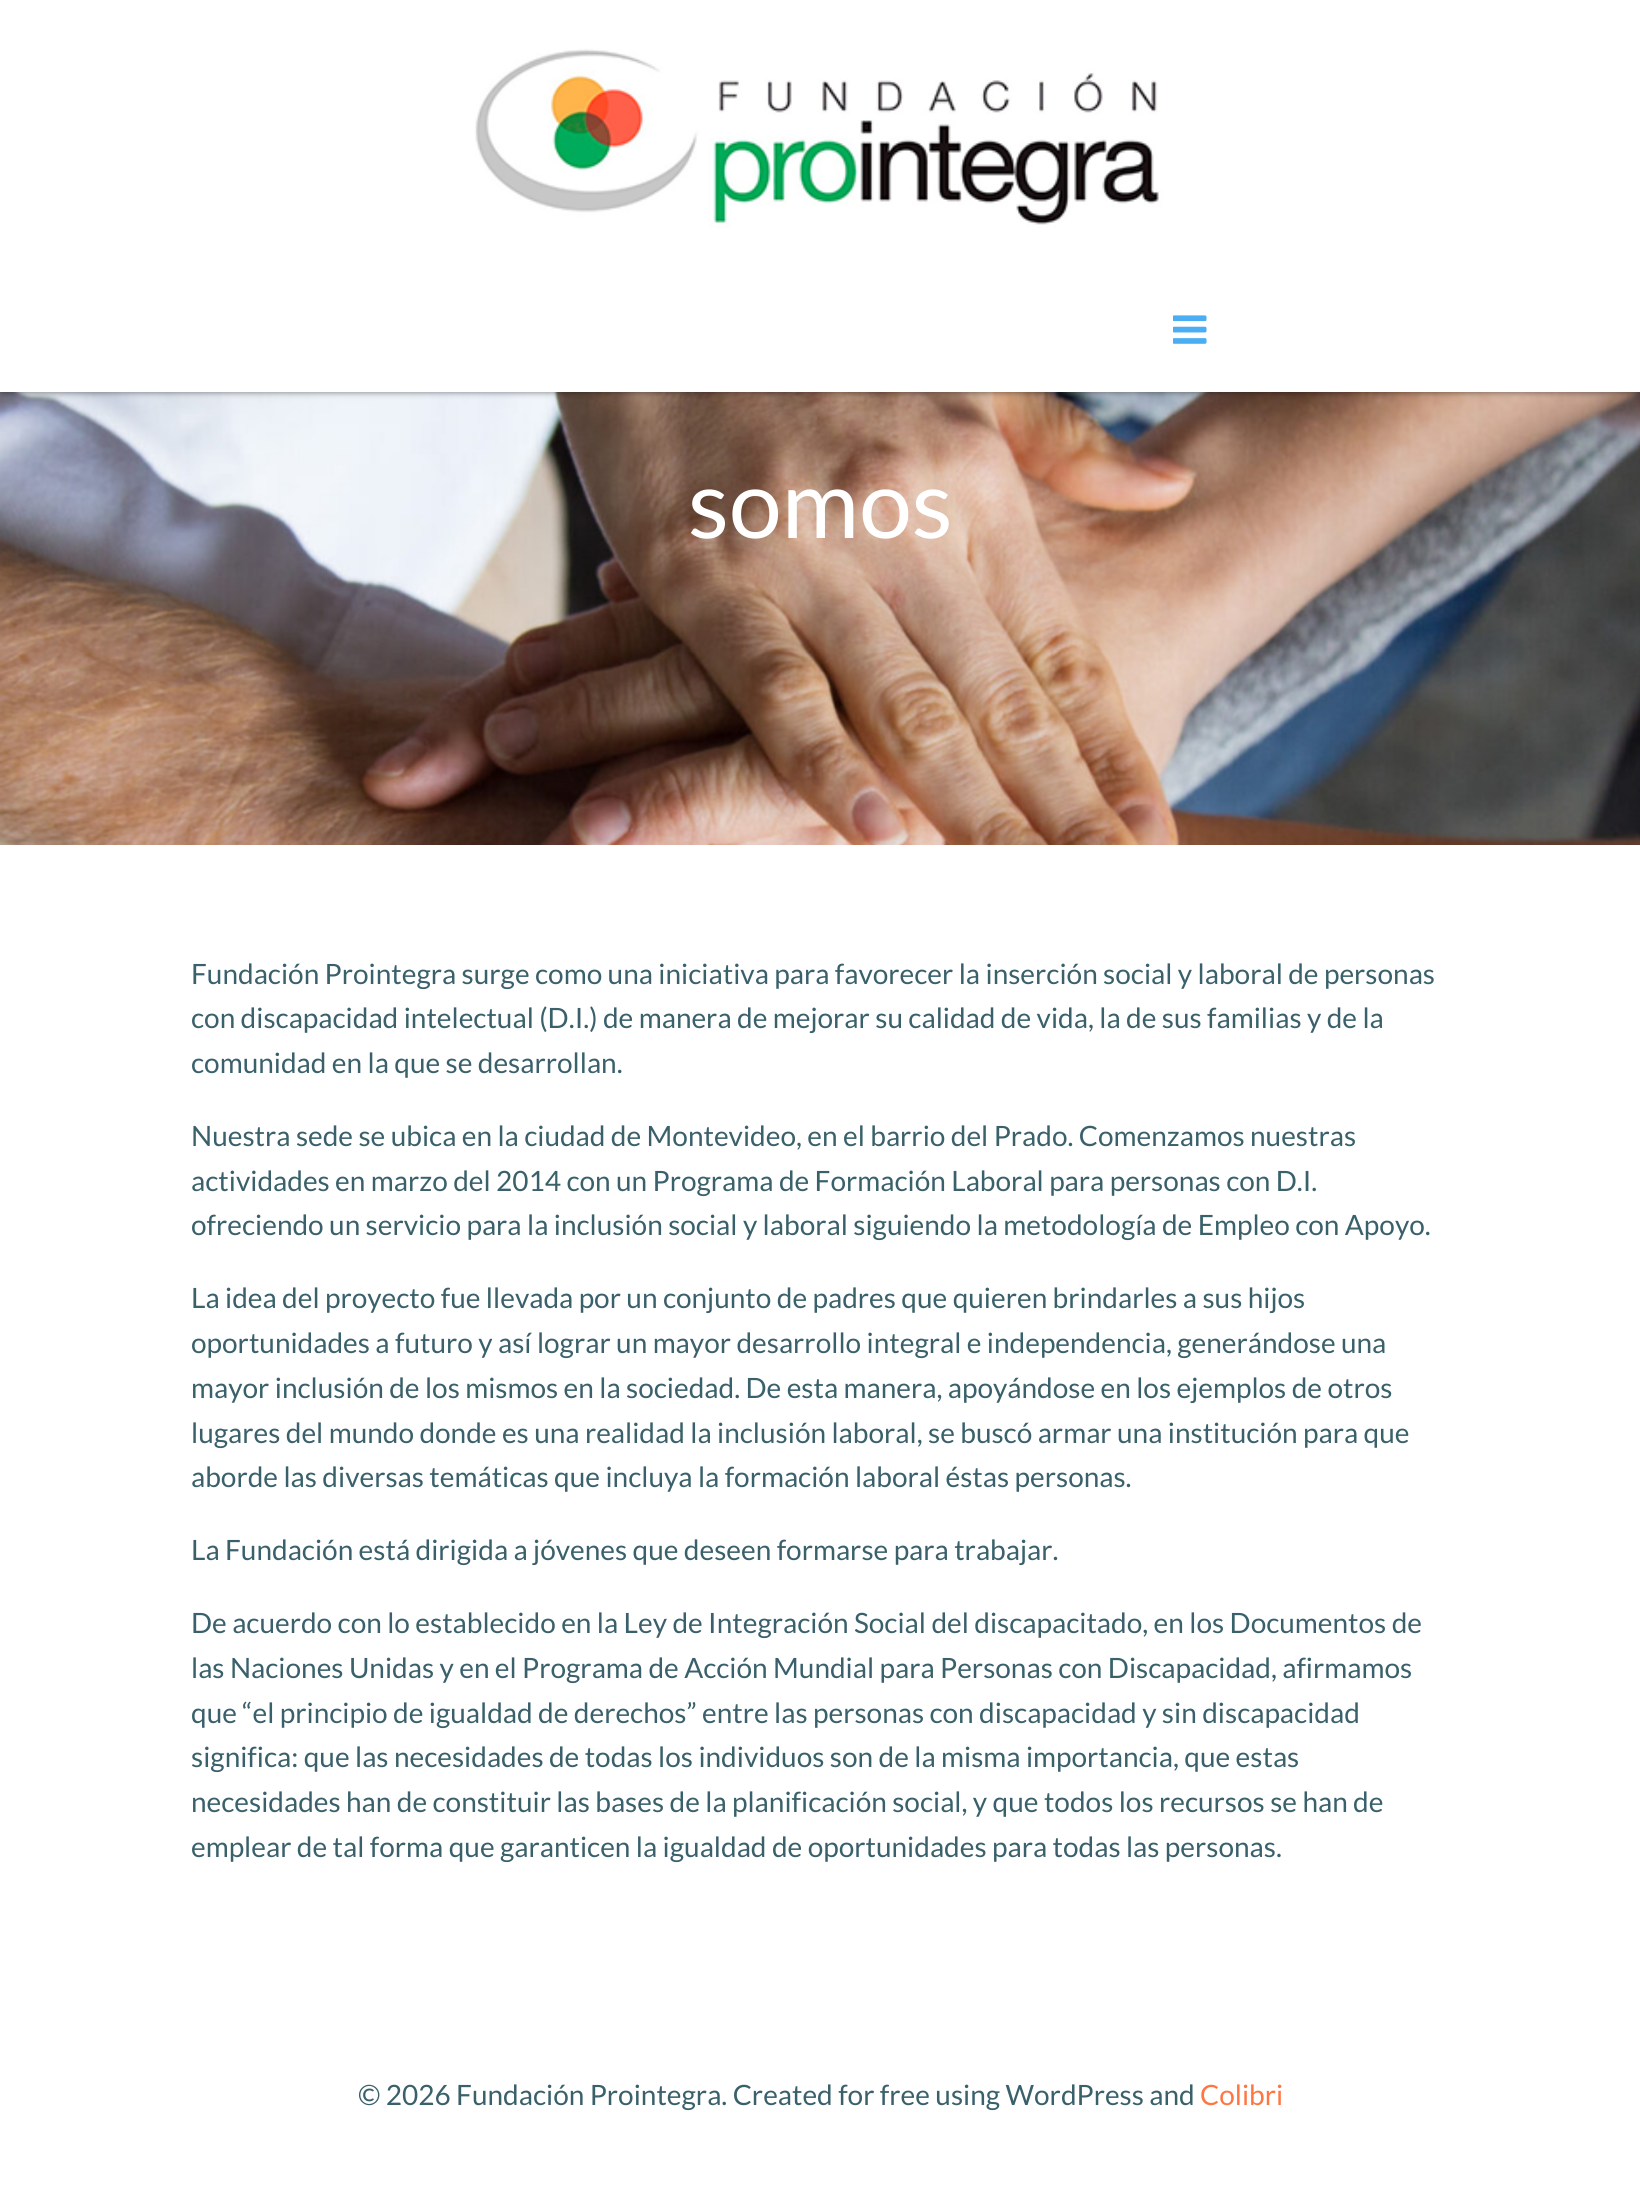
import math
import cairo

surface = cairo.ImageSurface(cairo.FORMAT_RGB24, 1640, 2185)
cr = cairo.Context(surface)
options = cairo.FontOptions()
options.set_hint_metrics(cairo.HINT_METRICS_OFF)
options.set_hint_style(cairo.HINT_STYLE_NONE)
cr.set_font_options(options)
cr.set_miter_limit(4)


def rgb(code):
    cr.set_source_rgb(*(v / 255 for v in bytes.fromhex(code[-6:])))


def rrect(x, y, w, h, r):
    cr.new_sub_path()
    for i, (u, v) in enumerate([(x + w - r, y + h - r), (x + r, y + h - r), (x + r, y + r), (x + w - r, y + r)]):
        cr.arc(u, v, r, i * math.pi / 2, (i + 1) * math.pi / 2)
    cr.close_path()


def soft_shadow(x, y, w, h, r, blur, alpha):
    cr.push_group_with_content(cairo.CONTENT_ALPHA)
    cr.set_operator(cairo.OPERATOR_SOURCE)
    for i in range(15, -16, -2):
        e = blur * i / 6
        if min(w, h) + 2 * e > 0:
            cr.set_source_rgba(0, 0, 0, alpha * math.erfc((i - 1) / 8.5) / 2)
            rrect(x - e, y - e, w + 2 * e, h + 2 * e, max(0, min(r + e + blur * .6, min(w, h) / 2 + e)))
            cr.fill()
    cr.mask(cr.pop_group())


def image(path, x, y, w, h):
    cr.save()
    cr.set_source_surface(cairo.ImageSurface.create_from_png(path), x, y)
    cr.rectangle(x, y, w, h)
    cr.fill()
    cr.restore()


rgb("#ffffff")
cr.paint()
image("img/3.png", 0, 392, 1640, 453)
rgb("#000000")
soft_shadow(0, 0, 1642, 392, 0, 3.5, 0.5)
rgb("#ffffff")
cr.rectangle(0, 0, 1640, 392)
cr.fill()
image("img/1.png", 445, 18, 752, 234)
image("img/2.png", 1173, 315, 34, 29)
cr.select_font_face("Lato")
cr.set_font_size(94.5)
cr.move_to(688, 538)
cr.show_text("somos")
cr.set_font_size(28)
rgb("#3a616b")
for x, y, s in [
    (191, 984, "Fundación Prointegra surge como una iniciativa para favorecer la inserción social y laboral de personas"),
    (191, 1028, "con discapacidad intelectual (D.I.) de manera de mejorar su calidad de vida, la de sus familias y de la"),
    (191, 1073, "comunidad en la que se desarrollan."),
    (191, 1146, "Nuestra sede se ubica en la ciudad de Montevideo, en el barrio del Prado. Comenzamos nuestras"),
    (191, 1191, "actividades en marzo del 2014 con un Programa de Formación Laboral para personas con D.I."),
    (191, 1235, "ofreciendo un servicio para la inclusión social y laboral siguiendo la metodología de Empleo con Apoyo."),
    (191, 1308, "La idea del proyecto fue llevada por un conjunto de padres que quieren brindarles a sus hijos"),
    (191, 1353, "oportunidades a futuro y así lograr un mayor desarrollo integral e independencia, generándose una"),
    (191, 1398, "mayor inclusión de los mismos en la sociedad. De esta manera, apoyándose en los ejemplos de otros"),
    (191, 1443, "lugares del mundo donde es una realidad la inclusión laboral, se buscó armar una institución para que"),
    (191, 1487, "aborde las diversas temáticas que incluya la formación laboral éstas personas."),
    (191, 1560, "La Fundación está dirigida a jóvenes que deseen formarse para trabajar."),
    (191, 1633, "De acuerdo con lo establecido en la Ley de Integración Social del discapacitado, en los Documentos de"),
    (191, 1678, "las Naciones Unidas y en el Programa de Acción Mundial para Personas con Discapacidad, afirmamos"),
    (191, 1723, "que “el principio de igualdad de derechos” entre las personas con discapacidad y sin discapacidad"),
    (191, 1767, "significa: que las necesidades de todas los individuos son de la misma importancia, que estas"),
    (191, 1812, "necesidades han de constituir las bases de la planificación social, y que todos los recursos se han de"),
    (191, 1857, "emplear de tal forma que garanticen la igualdad de oportunidades para todas las personas."),
    (358, 2105, "© 2026 Fundación Prointegra. Created for free using WordPress and"),
]:
    cr.move_to(x, y)
    cr.show_text(s)
rgb("#ff7643")
cr.move_to(1200, 2105)
cr.show_text("Colibri")
surface.write_to_png("page.png")
